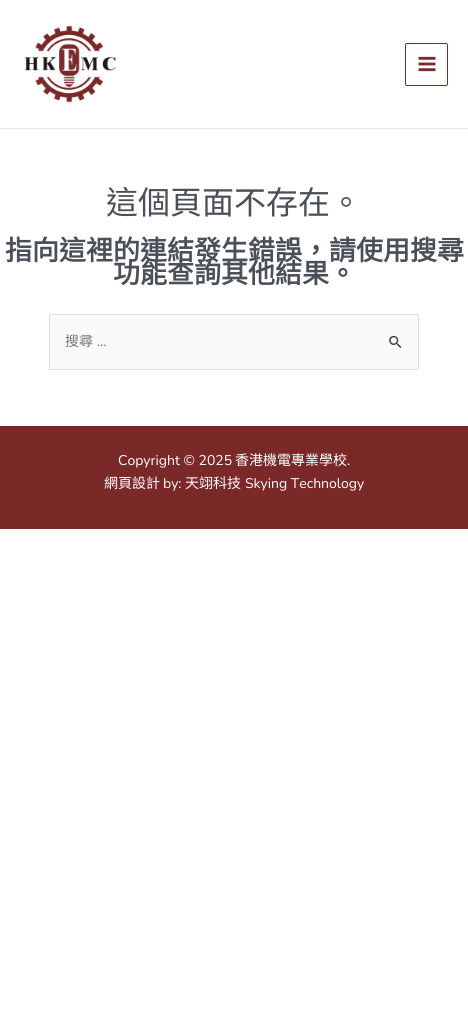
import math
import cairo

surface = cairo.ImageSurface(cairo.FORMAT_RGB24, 468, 1011)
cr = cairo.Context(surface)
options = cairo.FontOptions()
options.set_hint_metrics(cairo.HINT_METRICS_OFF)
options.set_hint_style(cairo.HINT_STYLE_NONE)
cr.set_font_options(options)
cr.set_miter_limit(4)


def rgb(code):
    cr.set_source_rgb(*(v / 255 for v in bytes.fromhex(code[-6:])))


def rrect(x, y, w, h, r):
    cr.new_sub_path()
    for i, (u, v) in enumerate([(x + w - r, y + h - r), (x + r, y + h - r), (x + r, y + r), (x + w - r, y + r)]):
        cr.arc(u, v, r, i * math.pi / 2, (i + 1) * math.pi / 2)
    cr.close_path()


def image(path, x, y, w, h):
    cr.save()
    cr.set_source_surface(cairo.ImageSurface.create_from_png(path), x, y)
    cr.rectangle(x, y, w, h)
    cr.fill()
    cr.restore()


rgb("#ffffff")
cr.paint()
rgb("#eaeaea")
cr.rectangle(0, 128, 468, 1)
cr.fill()
image("img/1.png", 24, 25, 92, 78)
rrect(405.5, 43.5, 42, 42, 1.5)
rgb("#7b2829")
cr.set_line_width(1)
cr.stroke()
image("img/2.png", 418, 56, 18, 16)
rgb("#fafafa")
rrect(49.5, 314.5, 369, 55, 1.5)
cr.fill_preserve()
rgb("#dddddd")
cr.stroke()
image("img/3.png", 389, 335, 13, 13)
rgb("#7b2829")
cr.rectangle(0, 426, 468, 103)
cr.fill()
cr.select_font_face("Noto Sans CJK TC")
cr.set_font_size(32)
rgb("#4b4f58")
cr.move_to(106, 214)
cr.show_text("這個頁面不存在。")
cr.select_font_face("Noto Sans CJK TC", cairo.FONT_SLANT_NORMAL, cairo.FONT_WEIGHT_BOLD)
cr.set_font_size(27)
cr.move_to(5, 260)
cr.show_text("指向這裡的連結發生錯誤，請使用搜尋")
cr.move_to(113, 283)
cr.show_text("功能查詢其他結果。")
cr.select_font_face("Noto Sans CJK TC")
cr.set_font_size(14)
rgb("#757575")
cr.move_to(65, 346)
cr.show_text("搜尋")
cr.select_font_face("Nunito Sans")
cr.move_to(97, 346)
cr.show_text("…")
rgb("#ffffff")
cr.move_to(118, 465)
cr.show_text("Copyright © 2025")
cr.select_font_face("Noto Sans CJK TC")
cr.move_to(235, 465)
cr.show_text("香港機電專業學校")
cr.select_font_face("Nunito Sans")
cr.move_to(347, 465)
cr.show_text(".")
cr.select_font_face("Noto Sans CJK TC")
cr.move_to(104, 488)
cr.show_text("網頁設計")
cr.select_font_face("Nunito Sans")
cr.move_to(163, 488)
cr.show_text("by:")
cr.select_font_face("Noto Sans CJK TC")
cr.move_to(185, 488)
cr.show_text("天翊科技")
cr.select_font_face("Nunito Sans")
cr.move_to(245, 488)
cr.show_text("Skying Technology")
surface.write_to_png("page.png")
